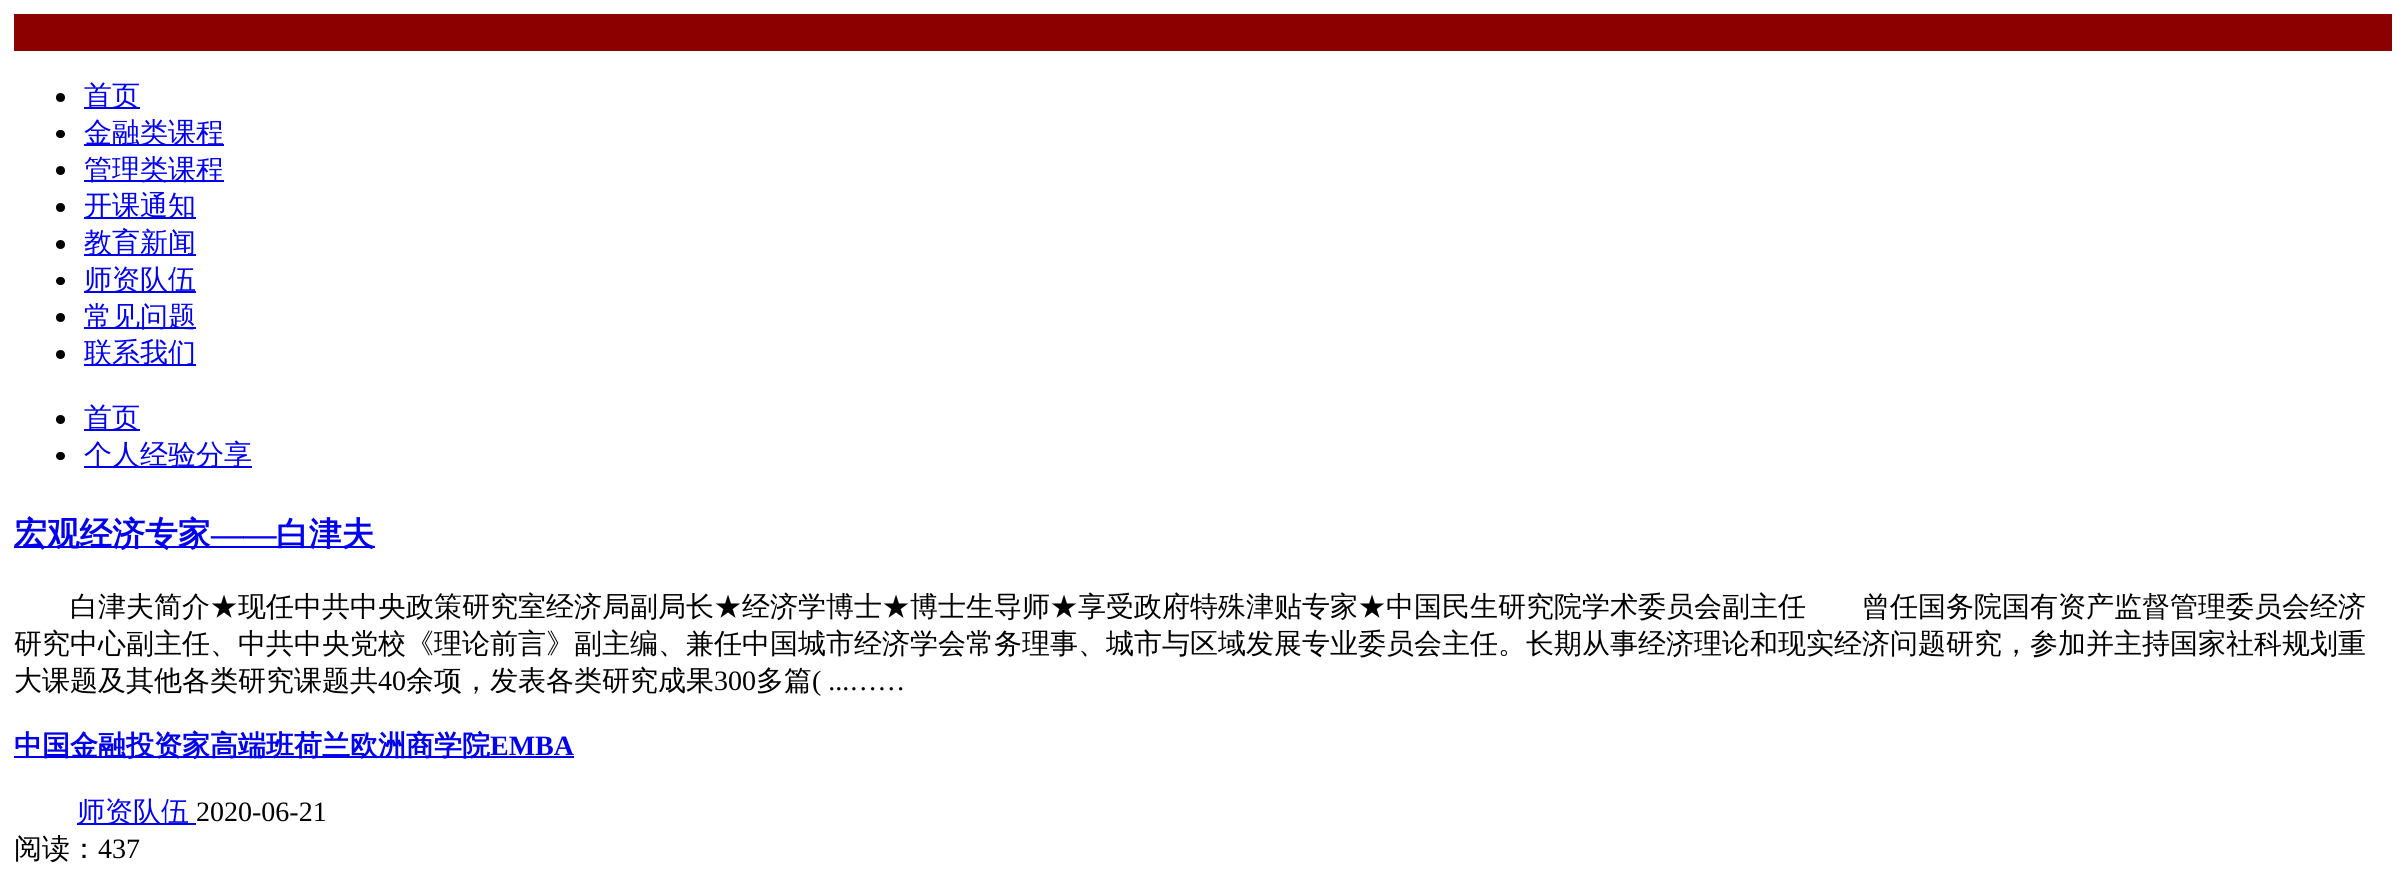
import math
import cairo

surface = cairo.ImageSurface(cairo.FORMAT_RGB24, 2405, 889)
cr = cairo.Context(surface)
options = cairo.FontOptions()
options.set_hint_metrics(cairo.HINT_METRICS_OFF)
options.set_hint_style(cairo.HINT_STYLE_NONE)
cr.set_font_options(options)
cr.set_miter_limit(4)


def rgb(code):
    cr.set_source_rgb(*(v / 255 for v in bytes.fromhex(code[-6:])))


def rrect(x, y, w, h, r):
    cr.new_sub_path()
    for i, (u, v) in enumerate([(x + w - r, y + h - r), (x + r, y + h - r), (x + r, y + r), (x + w - r, y + r)]):
        cr.arc(u, v, r, i * math.pi / 2, (i + 1) * math.pi / 2)
    cr.close_path()


rgb("#ffffff")
cr.paint()
rgb("#8c0000")
cr.rectangle(14, 14, 2378, 37)
cr.fill()
rgb("#000000")
cr.arc(60.5, 97.5, 4.5, 0, 2 * math.pi)
cr.fill()
rgb("#0000ee")
cr.rectangle(84, 107, 56, 2)
cr.fill()
rgb("#000000")
rrect(56, 130, 9, 8, 4)
cr.fill()
rgb("#0000ee")
cr.rectangle(84, 144, 140, 2)
cr.fill()
rgb("#000000")
cr.arc(60.5, 170.5, 4.5, 0, 2 * math.pi)
cr.fill()
rgb("#0000ee")
cr.rectangle(84, 180, 140, 2)
cr.fill()
rgb("#000000")
cr.arc(60.5, 207.5, 4.5, 0, 2 * math.pi)
cr.fill()
rgb("#0000ee")
cr.rectangle(84, 217, 112, 2)
cr.fill()
rgb("#000000")
cr.arc(60.5, 244.5, 4.5, 0, 2 * math.pi)
cr.fill()
rgb("#0000ee")
cr.rectangle(84, 254, 112, 2)
cr.fill()
rgb("#000000")
rrect(56, 277, 9, 8, 4)
cr.fill()
rgb("#0000ee")
cr.rectangle(84, 291, 112, 2)
cr.fill()
rgb("#000000")
cr.arc(60.5, 317.5, 4.5, 0, 2 * math.pi)
cr.fill()
rgb("#0000ee")
cr.rectangle(84, 327, 112, 2)
cr.fill()
rgb("#000000")
cr.arc(60.5, 354.5, 4.5, 0, 2 * math.pi)
cr.fill()
rgb("#0000ee")
cr.rectangle(84, 364, 112, 2)
cr.fill()
rgb("#000000")
cr.arc(60.5, 419.5, 4.5, 0, 2 * math.pi)
cr.fill()
rgb("#0000ee")
cr.rectangle(84, 429, 56, 2)
cr.fill()
rgb("#000000")
rrect(56, 452, 9, 8, 4)
cr.fill()
for x, y, w, h, color in [
    (84, 466, 168, 2, "#0000ee"),
    (14, 546, 361, 2, "#0000ee"),
    (14, 756, 560, 2, "#0000ee"),
    (77, 823, 119, 2, "#0000ee"),
]:
    rgb(color)
    cr.rectangle(x, y, w, h)
    cr.fill()
cr.select_font_face("WenQuanYi Zen Hei Medium")
cr.set_font_size(28)
for x, y, s in [
    (84, 105, "首页"),
    (84, 142, "金融类课程"),
    (84, 179, "管理类课程"),
    (84, 215, "开课通知"),
    (84, 252, "教育新闻"),
    (84, 289, "师资队伍"),
    (84, 326, "常见问题"),
    (84, 362, "联系我们"),
    (84, 427, "首页"),
    (84, 464, "个人经验分享"),
]:
    cr.move_to(x, y)
    cr.show_text(s)
cr.select_font_face("WenQuanYi Zen Hei", cairo.FONT_SLANT_NORMAL, cairo.FONT_WEIGHT_BOLD)
cr.set_font_size(32.75)
cr.move_to(14, 545)
cr.show_text("宏观经济专家")
cr.select_font_face("Liberation Serif", cairo.FONT_SLANT_NORMAL, cairo.FONT_WEIGHT_BOLD)
cr.move_to(211, 545)
cr.show_text("——")
cr.select_font_face("WenQuanYi Zen Hei", cairo.FONT_SLANT_NORMAL, cairo.FONT_WEIGHT_BOLD)
cr.move_to(276, 545)
cr.show_text("白津夫")
cr.select_font_face("WenQuanYi Zen Hei Medium")
cr.set_font_size(28)
rgb("#000000")
for x, y, s in [
    (70, 616, "白津夫简介★现任中共中央政策研究室经济局副局长★经济学博士★博士生导师★享受政府特殊津贴专家★中国民生研究院学术委员会副主任　　曾任国务院国有资产监督管理委员会经济"),
    (14, 653, "研究中心副主任、中共中央党校《理论前言》副主编、兼任中国城市经济学会常务理事、城市与区域发展专业委员会主任。长期从事经济理论和现实经济问题研究，参加并主持国家社科规划重"),
    (14, 690, "大课题及其他各类研究课题共"),
]:
    cr.move_to(x, y)
    cr.show_text(s)
cr.select_font_face("Liberation Serif")
cr.move_to(378, 690)
cr.show_text("40")
cr.select_font_face("WenQuanYi Zen Hei Medium")
cr.move_to(406, 690)
cr.show_text("余项，发表各类研究成果")
cr.select_font_face("Liberation Serif")
cr.move_to(714, 690)
cr.show_text("300")
cr.select_font_face("WenQuanYi Zen Hei Medium")
cr.move_to(756, 690)
cr.show_text("多篇")
cr.select_font_face("Liberation Serif")
cr.move_to(812, 690)
cr.show_text("( ...……")
cr.select_font_face("WenQuanYi Zen Hei", cairo.FONT_SLANT_NORMAL, cairo.FONT_WEIGHT_BOLD)
rgb("#0000ee")
cr.move_to(14, 755)
cr.show_text("中国金融投资家高端班荷兰欧洲商学院")
cr.select_font_face("Liberation Serif", cairo.FONT_SLANT_NORMAL, cairo.FONT_WEIGHT_BOLD)
cr.move_to(490, 755)
cr.show_text("EMBA")
cr.select_font_face("WenQuanYi Zen Hei Medium")
cr.move_to(77, 821)
cr.show_text("师资队伍")
cr.select_font_face("Liberation Serif")
rgb("#000000")
cr.move_to(196, 821)
cr.show_text("2020-06-21")
cr.select_font_face("WenQuanYi Zen Hei Medium")
cr.move_to(14, 858)
cr.show_text("阅读：")
cr.select_font_face("Liberation Serif")
cr.move_to(98, 858)
cr.show_text("437")
surface.write_to_png("page.png")
